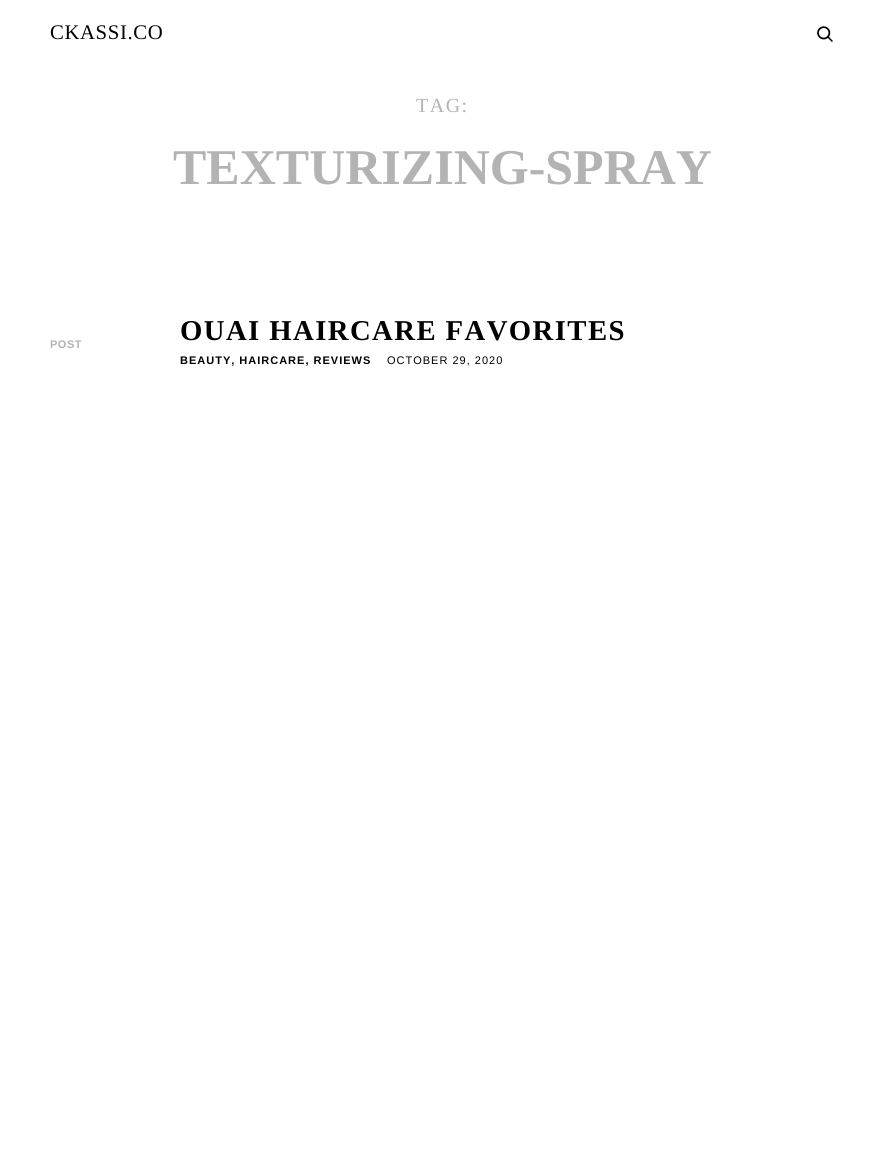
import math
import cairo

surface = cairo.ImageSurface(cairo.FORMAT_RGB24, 885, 1175)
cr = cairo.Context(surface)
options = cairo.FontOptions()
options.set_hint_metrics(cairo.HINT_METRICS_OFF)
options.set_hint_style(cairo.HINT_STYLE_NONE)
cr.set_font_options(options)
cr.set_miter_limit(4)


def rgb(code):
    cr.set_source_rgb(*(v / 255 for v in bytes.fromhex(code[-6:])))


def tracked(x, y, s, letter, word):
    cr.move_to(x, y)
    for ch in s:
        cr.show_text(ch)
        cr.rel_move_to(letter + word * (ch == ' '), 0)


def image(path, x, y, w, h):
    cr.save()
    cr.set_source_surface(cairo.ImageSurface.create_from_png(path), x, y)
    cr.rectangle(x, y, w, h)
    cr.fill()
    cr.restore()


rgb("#ffffff")
cr.paint()
image("img/1.png", 817, 26, 16, 16)
cr.select_font_face("Liberation Serif")
cr.set_font_size(20.75)
rgb("#000000")
tracked(50, 39, "CKASSI.CO", 0.6, 0)
cr.set_font_size(20)
rgb("#b3b3b3")
tracked(416, 112, "TAG:", 1.5, 0)
cr.select_font_face("Liberation Serif", cairo.FONT_SLANT_NORMAL, cairo.FONT_WEIGHT_BOLD)
cr.set_font_size(50)
cr.move_to(173, 184)
cr.show_text("TEXTURIZING-SPRAY")
cr.select_font_face("Liberation Sans", cairo.FONT_SLANT_NORMAL, cairo.FONT_WEIGHT_BOLD)
cr.set_font_size(11)
tracked(50, 348, "POST", 0.5, 0)
cr.select_font_face("Liberation Serif", cairo.FONT_SLANT_NORMAL, cairo.FONT_WEIGHT_BOLD)
cr.set_font_size(28.75)
rgb("#000000")
tracked(180, 340, "OUAI HAIRCARE FAVORITES", 1.4, 0)
cr.select_font_face("Liberation Sans", cairo.FONT_SLANT_NORMAL, cairo.FONT_WEIGHT_BOLD)
cr.set_font_size(11)
tracked(180, 364, "BEAUTY, HAIRCARE, REVIEWS", 1, 0)
cr.select_font_face("Liberation Sans")
tracked(387, 364, "OCTOBER 29, 2020", 1, 0)
surface.write_to_png("page.png")
